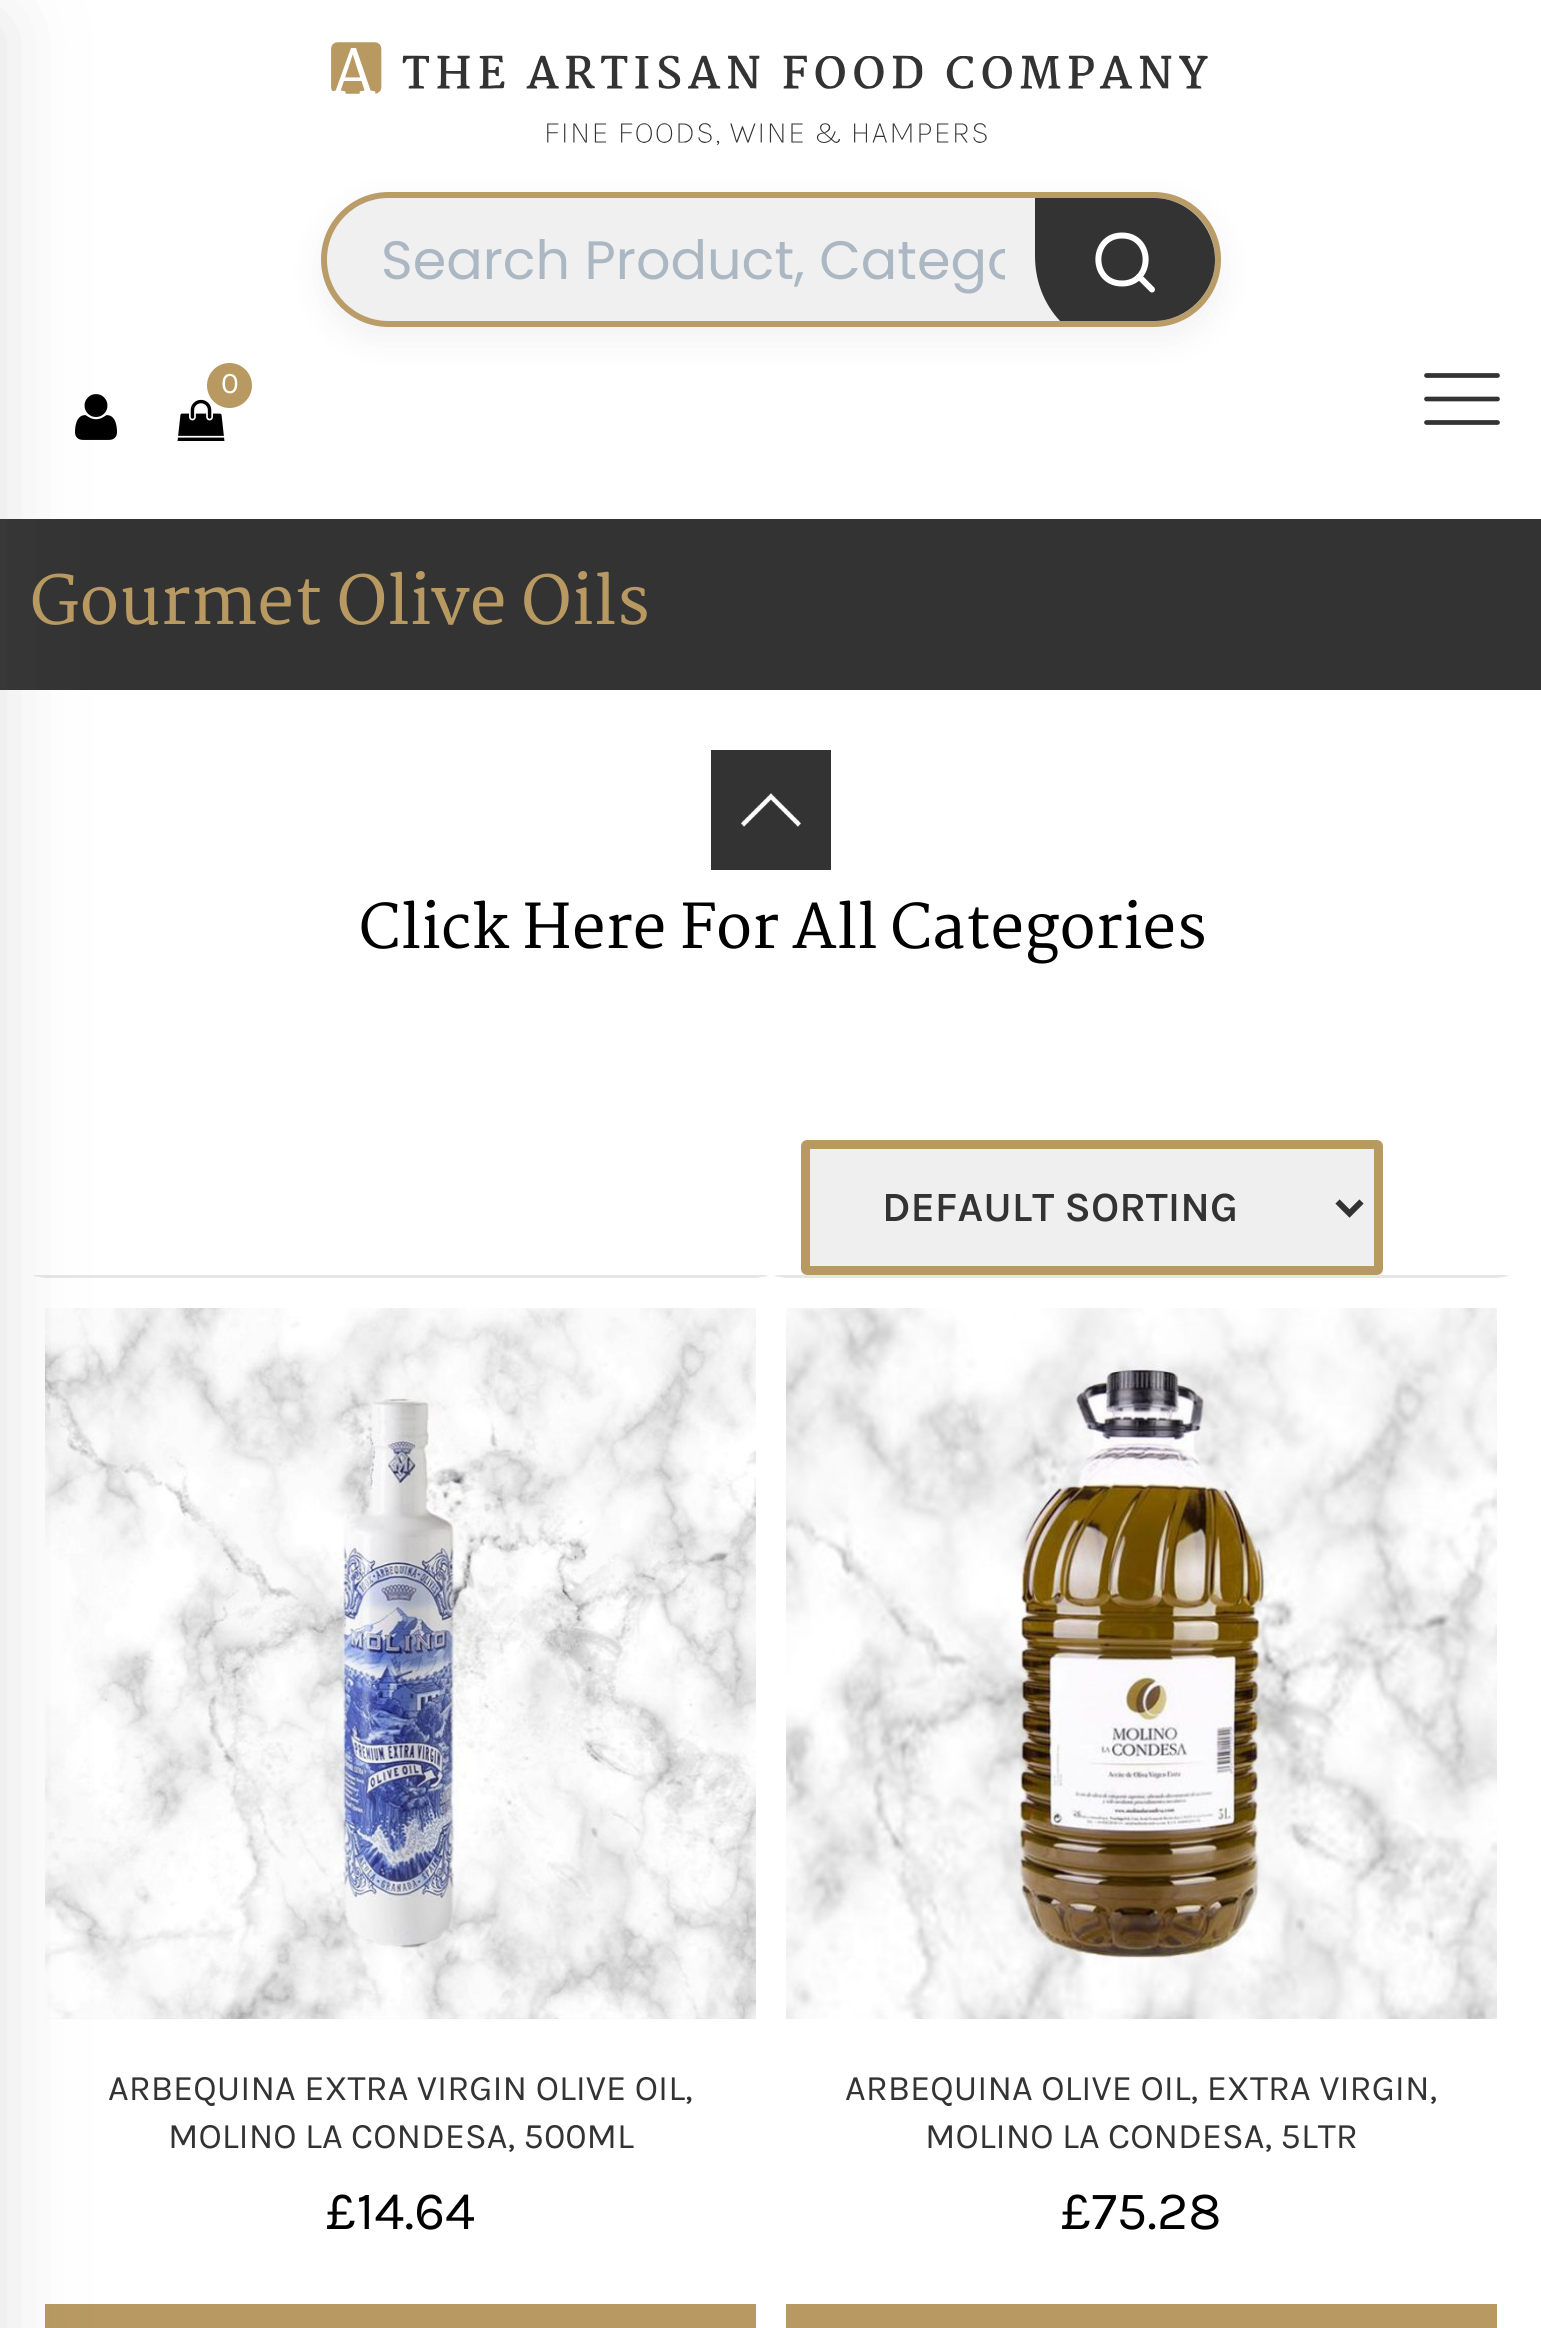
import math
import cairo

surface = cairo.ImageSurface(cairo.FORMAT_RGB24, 1541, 2328)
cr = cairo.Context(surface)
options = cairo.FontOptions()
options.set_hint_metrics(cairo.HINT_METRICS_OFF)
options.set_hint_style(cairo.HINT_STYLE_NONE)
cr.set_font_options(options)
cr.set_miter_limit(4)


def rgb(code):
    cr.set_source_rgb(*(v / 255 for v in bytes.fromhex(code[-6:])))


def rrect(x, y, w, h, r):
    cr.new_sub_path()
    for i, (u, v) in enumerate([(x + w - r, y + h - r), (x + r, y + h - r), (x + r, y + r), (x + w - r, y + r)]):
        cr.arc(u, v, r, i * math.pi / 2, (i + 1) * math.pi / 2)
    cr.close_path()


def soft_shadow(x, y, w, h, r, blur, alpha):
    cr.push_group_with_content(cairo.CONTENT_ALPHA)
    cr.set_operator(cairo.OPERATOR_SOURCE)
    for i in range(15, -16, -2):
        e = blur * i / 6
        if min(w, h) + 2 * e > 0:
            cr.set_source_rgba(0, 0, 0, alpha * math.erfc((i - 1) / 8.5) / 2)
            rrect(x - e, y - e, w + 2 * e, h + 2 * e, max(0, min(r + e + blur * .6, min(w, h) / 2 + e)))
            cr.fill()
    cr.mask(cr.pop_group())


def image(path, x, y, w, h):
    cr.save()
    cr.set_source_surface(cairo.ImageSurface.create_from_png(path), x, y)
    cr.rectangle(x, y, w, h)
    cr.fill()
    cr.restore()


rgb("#ffffff")
cr.paint()
image("img/3.png", 75, 394, 42, 46)
rgb("#333333")
cr.rectangle(0, 519, 1541, 171)
cr.fill()
rgb("#e6e6e6")
cr.new_path()
cr.move_to(36, 1275)
cr.line_to(33, 1276)
cr.line_to(45, 1278)
cr.line_to(756, 1278)
cr.line_to(768, 1276)
cr.line_to(765, 1275)
cr.close_path()
cr.fill()
image("img/5.png", 45, 1308, 711, 711)
rgb("#b79961")
cr.rectangle(45, 2304, 711, 24)
cr.fill()
rgb("#64646f")
soft_shadow(-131, 21, 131, 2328, 0, 43.5, 0.2)
image("img/1.png", 331, 42, 877, 103)
rgb("#0d0a2c")
soft_shadow(321, 204, 900, 135, 67.5, 18, 0.06)
rgb("#f0f0f0")
rrect(324, 195, 894, 129, 64.5)
cr.fill_preserve()
rgb("#b99c67")
cr.set_line_width(6)
cr.stroke()
rgb("#333333")
cr.new_path()
cr.move_to(1035, 198)
cr.line_to(1035, 256)
cr.curve_to(1035, 281, 1044, 304, 1060, 321)
cr.line_to(1154, 321)
cr.curve_to(1187, 321, 1215, 293, 1215, 260)
cr.curve_to(1215, 226, 1187, 198, 1154, 198)
cr.close_path()
cr.fill()
cr.new_path()
cr.move_to(1122, 283.5)
cr.curve_to(1153.5, 283.5, 1153.5, 235.5, 1122, 235.5)
cr.curve_to(1090.5, 235.5, 1090.5, 283.5, 1122, 283.5)
cr.close_path()
cr.move_to(1152, 289.5)
cr.line_to(1139, 276.5)
rgb("#ffffff")
cr.set_line_cap(cairo.LINE_CAP_ROUND)
cr.set_line_join(cairo.LINE_JOIN_ROUND)
cr.stroke()
image("img/2.png", 177, 399, 48, 42)
rgb("#b79961")
cr.arc(229.5, 385.5, 22.5, 0, 2 * math.pi)
cr.fill()
cr.new_path()
cr.move_to(1426.5, 399)
cr.line_to(1497.5, 399)
cr.move_to(1426.5, 375.5)
cr.line_to(1497.5, 375.5)
cr.move_to(1426.5, 422.5)
cr.line_to(1497.5, 422.5)
rgb("#333333")
cr.set_line_width(4.7)
cr.stroke()
cr.rectangle(711, 750, 120, 120)
cr.fill()
image("img/4.png", 741, 793, 60, 34)
rgb("#efefef")
rrect(805.5, 1144.5, 573, 126, 1.5)
cr.fill_preserve()
rgb("#b79961")
cr.set_line_width(9)
cr.set_line_cap(cairo.LINE_CAP_BUTT)
cr.set_line_join(cairo.LINE_JOIN_MITER)
cr.stroke()
cr.new_path()
cr.move_to(1337.5, 1201.5)
cr.line_to(1349.5, 1213.5)
cr.line_to(1361.5, 1201.5)
rgb("#333333")
cr.set_line_width(6)
cr.stroke()
rgb("#e6e6e6")
cr.new_path()
cr.move_to(777, 1275)
cr.line_to(774, 1276)
cr.line_to(786, 1278)
cr.line_to(1497, 1278)
cr.line_to(1509, 1276)
cr.line_to(1506, 1275)
cr.close_path()
cr.fill()
image("img/6.png", 786, 1308, 711, 711)
rgb("#b79961")
cr.rectangle(786, 2304, 711, 24)
cr.fill()
cr.save()
cr.rectangle(381, 219, 624, 81)
cr.clip()
cr.select_font_face("Poppins")
cr.set_font_size(54)
rgb("#abb7c2")
cr.move_to(381, 279)
cr.show_text("Search Product, Catego")
cr.restore()
cr.select_font_face("Karla")
cr.set_font_size(30)
rgb("#ffffff")
cr.move_to(221, 393)
cr.show_text("0")
cr.select_font_face("Martel SemiBold")
cr.set_font_size(66)
rgb("#b79961")
cr.move_to(30, 624)
cr.show_text("Gourmet Olive Oils")
cr.set_font_size(60)
rgb("#000000")
cr.move_to(359, 948)
cr.show_text("Click Here For All Categories")
cr.select_font_face("Karla SemiBold")
cr.set_font_size(42)
rgb("#333333")
cr.move_to(882, 1221)
cr.show_text("DEFAULT SORTING")
cr.select_font_face("Karla")
cr.set_font_size(36)
cr.move_to(108, 2100)
cr.show_text("ARBEQUINA EXTRA VIRGIN OLIVE OIL,")
cr.move_to(168, 2148)
cr.show_text("MOLINO LA CONDESA, 500ML")
cr.set_font_size(54)
rgb("#000000")
cr.move_to(326, 2229)
cr.show_text("£14.64")
cr.set_font_size(36)
rgb("#333333")
cr.move_to(845, 2100)
cr.show_text("ARBEQUINA OLIVE OIL, EXTRA VIRGIN,")
cr.move_to(925, 2148)
cr.show_text("MOLINO LA CONDESA, 5LTR")
cr.set_font_size(54)
rgb("#000000")
cr.move_to(1061, 2229)
cr.show_text("£75.28")
surface.write_to_png("page.png")
